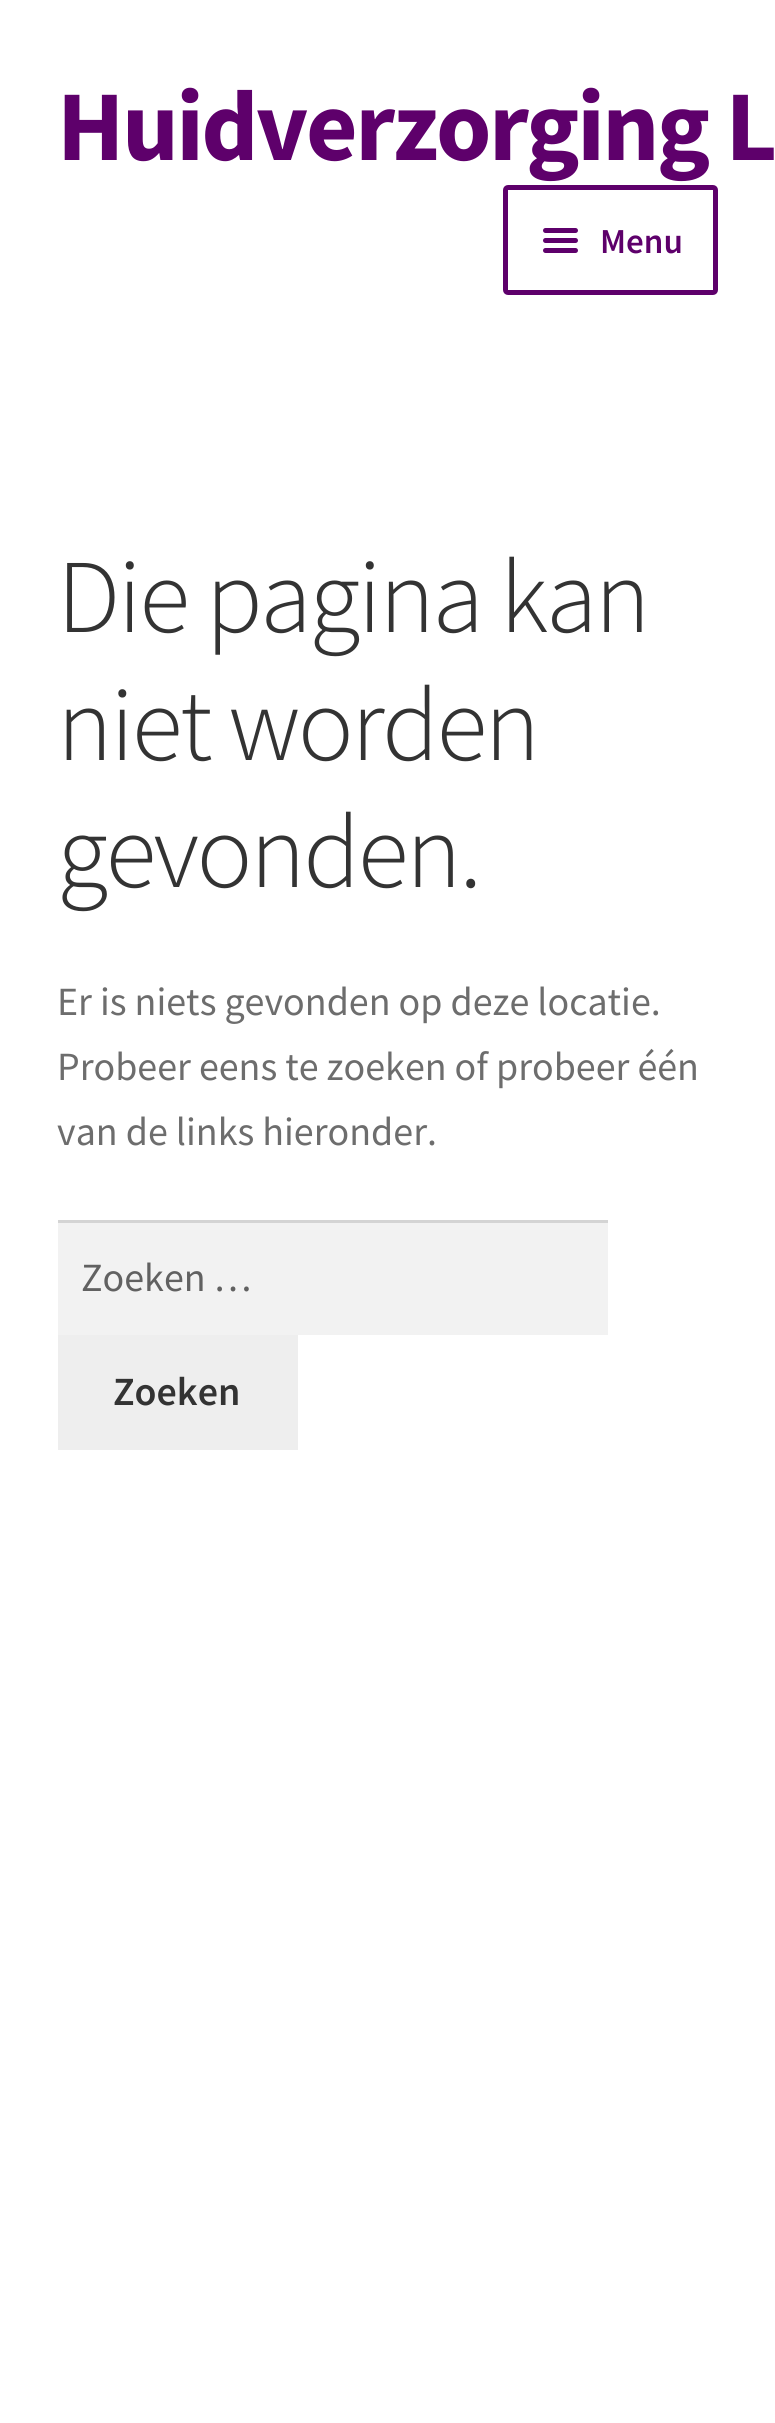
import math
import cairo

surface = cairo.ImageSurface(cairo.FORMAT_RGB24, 775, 2423)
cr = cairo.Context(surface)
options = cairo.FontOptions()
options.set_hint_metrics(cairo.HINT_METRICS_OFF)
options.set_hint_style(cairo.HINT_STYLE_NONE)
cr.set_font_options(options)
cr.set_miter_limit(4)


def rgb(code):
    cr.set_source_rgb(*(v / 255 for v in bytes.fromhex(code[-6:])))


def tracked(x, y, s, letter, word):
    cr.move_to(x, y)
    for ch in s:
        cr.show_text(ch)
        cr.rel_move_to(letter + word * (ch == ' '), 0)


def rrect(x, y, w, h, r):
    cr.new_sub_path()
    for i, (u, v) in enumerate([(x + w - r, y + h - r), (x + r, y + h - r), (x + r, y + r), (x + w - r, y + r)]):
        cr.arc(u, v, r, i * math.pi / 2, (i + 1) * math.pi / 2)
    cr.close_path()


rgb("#ffffff")
cr.paint()
rrect(505.5, 187.5, 210, 105, 2.5)
rgb("#5e006b")
cr.set_line_width(5)
cr.stroke()
rrect(543, 228, 35, 5, 2.5)
cr.fill()
rrect(543, 238, 35, 5, 2.5)
cr.fill()
rrect(543, 248, 35, 5, 2.5)
cr.fill()
for x, y, w, h, color in [
    (58, 1223, 550, 112, "#f2f2f2"),
    (58, 1220, 550, 3, "#d4d4d4"),
    (58, 1335, 240, 115, "#eeeeee"),
]:
    rgb(color)
    cr.rectangle(x, y, w, h)
    cr.fill()
cr.select_font_face("Source Sans Pro", cairo.FONT_SLANT_NORMAL, cairo.FONT_WEIGHT_BOLD)
cr.set_font_size(100)
rgb("#5e006b")
tracked(57, 160, "Huidverzorging L", -2.5, 0)
cr.select_font_face("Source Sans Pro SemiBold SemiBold")
cr.set_font_size(35)
cr.move_to(600, 253)
cr.show_text("Menu")
cr.select_font_face("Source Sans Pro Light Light")
cr.set_font_size(104.75)
rgb("#333333")
for x, y, s in [
    (57, 632, "Die pagina kan"),
    (57, 760, "niet worden"),
    (57, 887, "gevonden."),
]:
    tracked(x, y, s, -2.5, 0)
cr.select_font_face("Source Sans Pro")
cr.set_font_size(40)
rgb("#6d6d6d")
for x, y, s in [
    (57, 1015, "Er is niets gevonden op deze locatie."),
    (57, 1080, "Probeer eens te zoeken of probeer één"),
    (57, 1145, "van de links hieronder."),
]:
    cr.move_to(x, y)
    cr.show_text(s)
rgb("#616161")
cr.move_to(81, 1291)
cr.show_text("Zoeken …")
cr.select_font_face("Source Sans Pro SemiBold SemiBold")
rgb("#333333")
cr.move_to(113, 1405)
cr.show_text("Zoeken")
surface.write_to_png("page.png")
